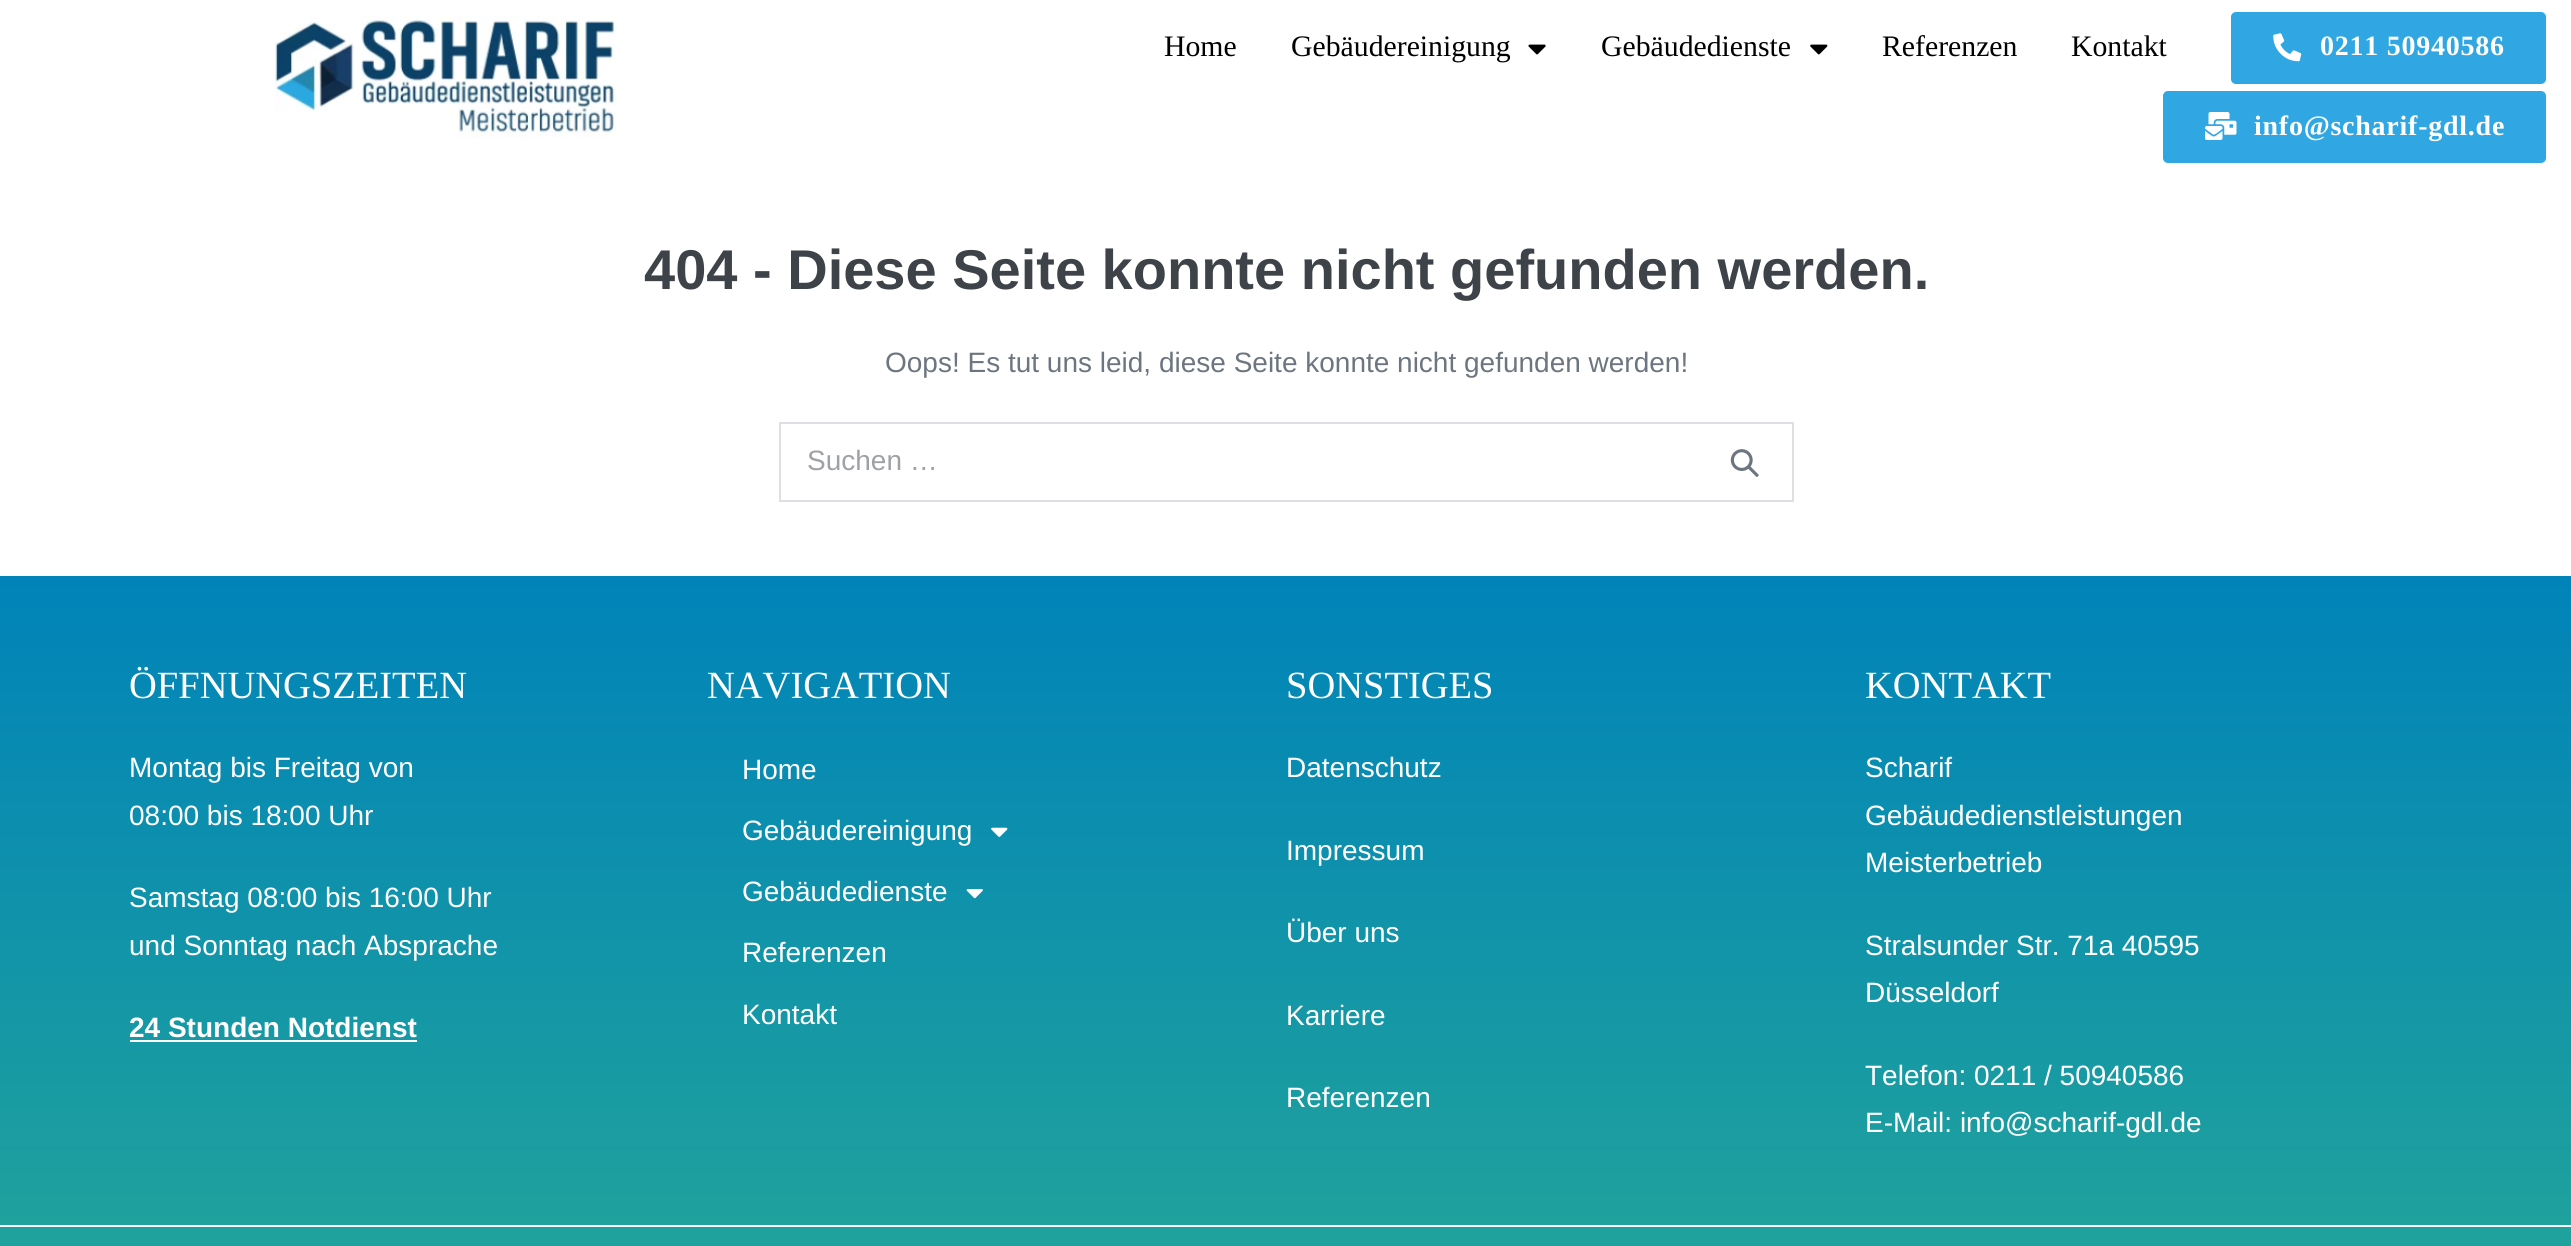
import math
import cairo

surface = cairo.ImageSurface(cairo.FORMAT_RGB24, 2571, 1246)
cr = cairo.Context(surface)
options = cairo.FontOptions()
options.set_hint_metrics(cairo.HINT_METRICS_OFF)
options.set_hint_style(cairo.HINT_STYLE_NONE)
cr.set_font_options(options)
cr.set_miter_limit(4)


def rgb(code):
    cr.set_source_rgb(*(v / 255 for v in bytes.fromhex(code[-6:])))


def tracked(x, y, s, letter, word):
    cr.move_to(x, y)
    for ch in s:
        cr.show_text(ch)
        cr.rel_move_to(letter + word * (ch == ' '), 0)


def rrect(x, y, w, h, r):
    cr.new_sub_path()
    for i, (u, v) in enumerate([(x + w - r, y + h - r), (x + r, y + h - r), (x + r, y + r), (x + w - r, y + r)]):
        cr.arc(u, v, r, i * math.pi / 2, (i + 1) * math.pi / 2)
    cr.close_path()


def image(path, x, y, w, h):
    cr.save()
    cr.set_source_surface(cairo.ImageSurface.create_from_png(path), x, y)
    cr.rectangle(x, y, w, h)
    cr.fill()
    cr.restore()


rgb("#ffffff")
cr.paint()
image("img/1.png", 275, 15, 342, 123)
image("img/2.png", 1528, 44, 18, 11)
image("img/3.png", 1810, 44, 18, 11)
rgb("#30a6e2")
rrect(2231, 12, 315, 72, 5)
cr.fill()
image("img/4.png", 2273, 33, 29, 29)
rrect(2163, 91, 383, 72, 5)
cr.fill()
image("img/5.png", 2205, 112, 32, 28)
cr.rectangle(780, 423, 1013, 78)
rgb("#dedee5")
cr.stroke()
image("img/6.png", 1730, 449, 29, 28)
gradient = cairo.LinearGradient(1286, 576, 1286, 1225)
gradient.add_color_stop_rgba(0, 0, 0.514, 0.725, 1)
gradient.add_color_stop_rgba(1, 0.122, 0.631, 0.616, 1)
cr.set_source(gradient)
cr.rectangle(0, 576, 2571, 649)
cr.fill()
rgb("#ffffff")
cr.rectangle(130, 1040, 287, 2)
cr.fill()
image("img/7.png", 991, 827, 17, 10)
image("img/8.png", 966, 889, 17, 10)
rgb("#1fa19d")
cr.rectangle(0, 1227, 2571, 19)
cr.fill()
cr.select_font_face("Liberation Serif")
cr.set_font_size(29.75)
rgb("#000000")
for x, y, s in [
    (1164, 56, "Home"),
    (1291, 56, "Gebäudereinigung"),
    (1601, 56, "Gebäudedienste"),
    (1882, 56, "Referenzen"),
    (2071, 56, "Kontakt"),
]:
    cr.move_to(x, y)
    cr.show_text(s)
cr.select_font_face("Liberation Serif", cairo.FONT_SLANT_NORMAL, cairo.FONT_WEIGHT_BOLD)
cr.set_font_size(28)
rgb("#ffffff")
tracked(2320, 55, "0211 50940586", 0.75, 0)
tracked(2254, 135, "info@scharif-gdl.de", 0.75, 0)
cr.select_font_face("Liberation Sans", cairo.FONT_SLANT_NORMAL, cairo.FONT_WEIGHT_BOLD)
cr.set_font_size(56)
rgb("#3e4349")
cr.move_to(644, 289)
cr.show_text("404 - Diese Seite konnte nicht gefunden werden.")
cr.select_font_face("Liberation Sans")
cr.set_font_size(28)
rgb("#6d7680")
cr.move_to(885, 372)
cr.show_text("Oops! Es tut uns leid, diese Seite konnte nicht gefunden werden!")
rgb("#9fa1a4")
cr.move_to(807, 470)
cr.show_text("Suchen …")
cr.select_font_face("Liberation Serif")
cr.set_font_size(38.5)
rgb("#ffffff")
cr.move_to(129, 698)
cr.show_text("ÖFFNUNGSZEITEN")
cr.select_font_face("Liberation Sans")
cr.set_font_size(28)
for x, y, s in [
    (129, 777, "Montag bis Freitag von"),
    (129, 825, "08:00 bis 18:00 Uhr"),
    (129, 907, "Samstag 08:00 bis 16:00 Uhr"),
    (129, 955, "und Sonntag nach Absprache"),
]:
    cr.move_to(x, y)
    cr.show_text(s)
cr.select_font_face("Liberation Sans", cairo.FONT_SLANT_NORMAL, cairo.FONT_WEIGHT_BOLD)
cr.move_to(129, 1037)
cr.show_text("24 Stunden Notdienst")
cr.select_font_face("Liberation Serif")
cr.set_font_size(38.5)
cr.move_to(707, 698)
cr.show_text("NAVIGATION")
cr.select_font_face("Liberation Sans")
cr.set_font_size(28)
for x, y, s in [
    (742, 779, "Home"),
    (742, 840, "Gebäudereinigung"),
    (742, 901, "Gebäudedienste"),
    (742, 962, "Referenzen"),
    (742, 1024, "Kontakt"),
]:
    cr.move_to(x, y)
    cr.show_text(s)
cr.select_font_face("Liberation Serif")
cr.set_font_size(38.5)
cr.move_to(1286, 698)
cr.show_text("SONSTIGES")
cr.select_font_face("Liberation Sans")
cr.set_font_size(28)
for x, y, s in [
    (1286, 777, "Datenschutz"),
    (1286, 860, "Impressum"),
    (1286, 942, "Über uns"),
    (1286, 1025, "Karriere"),
    (1286, 1107, "Referenzen"),
]:
    cr.move_to(x, y)
    cr.show_text(s)
cr.select_font_face("Liberation Serif")
cr.set_font_size(38.5)
cr.move_to(1865, 698)
cr.show_text("KONTAKT")
cr.select_font_face("Liberation Sans")
cr.set_font_size(28)
for x, y, s in [
    (1865, 777, "Scharif"),
    (1865, 825, "Gebäudedienstleistungen"),
    (1865, 872, "Meisterbetrieb"),
    (1865, 955, "Stralsunder Str. 71a 40595"),
    (1865, 1002, "Düsseldorf"),
    (1865, 1085, "Telefon: 0211 / 50940586"),
    (1865, 1132, "E-Mail: info@scharif-gdl.de"),
]:
    cr.move_to(x, y)
    cr.show_text(s)
surface.write_to_png("page.png")
